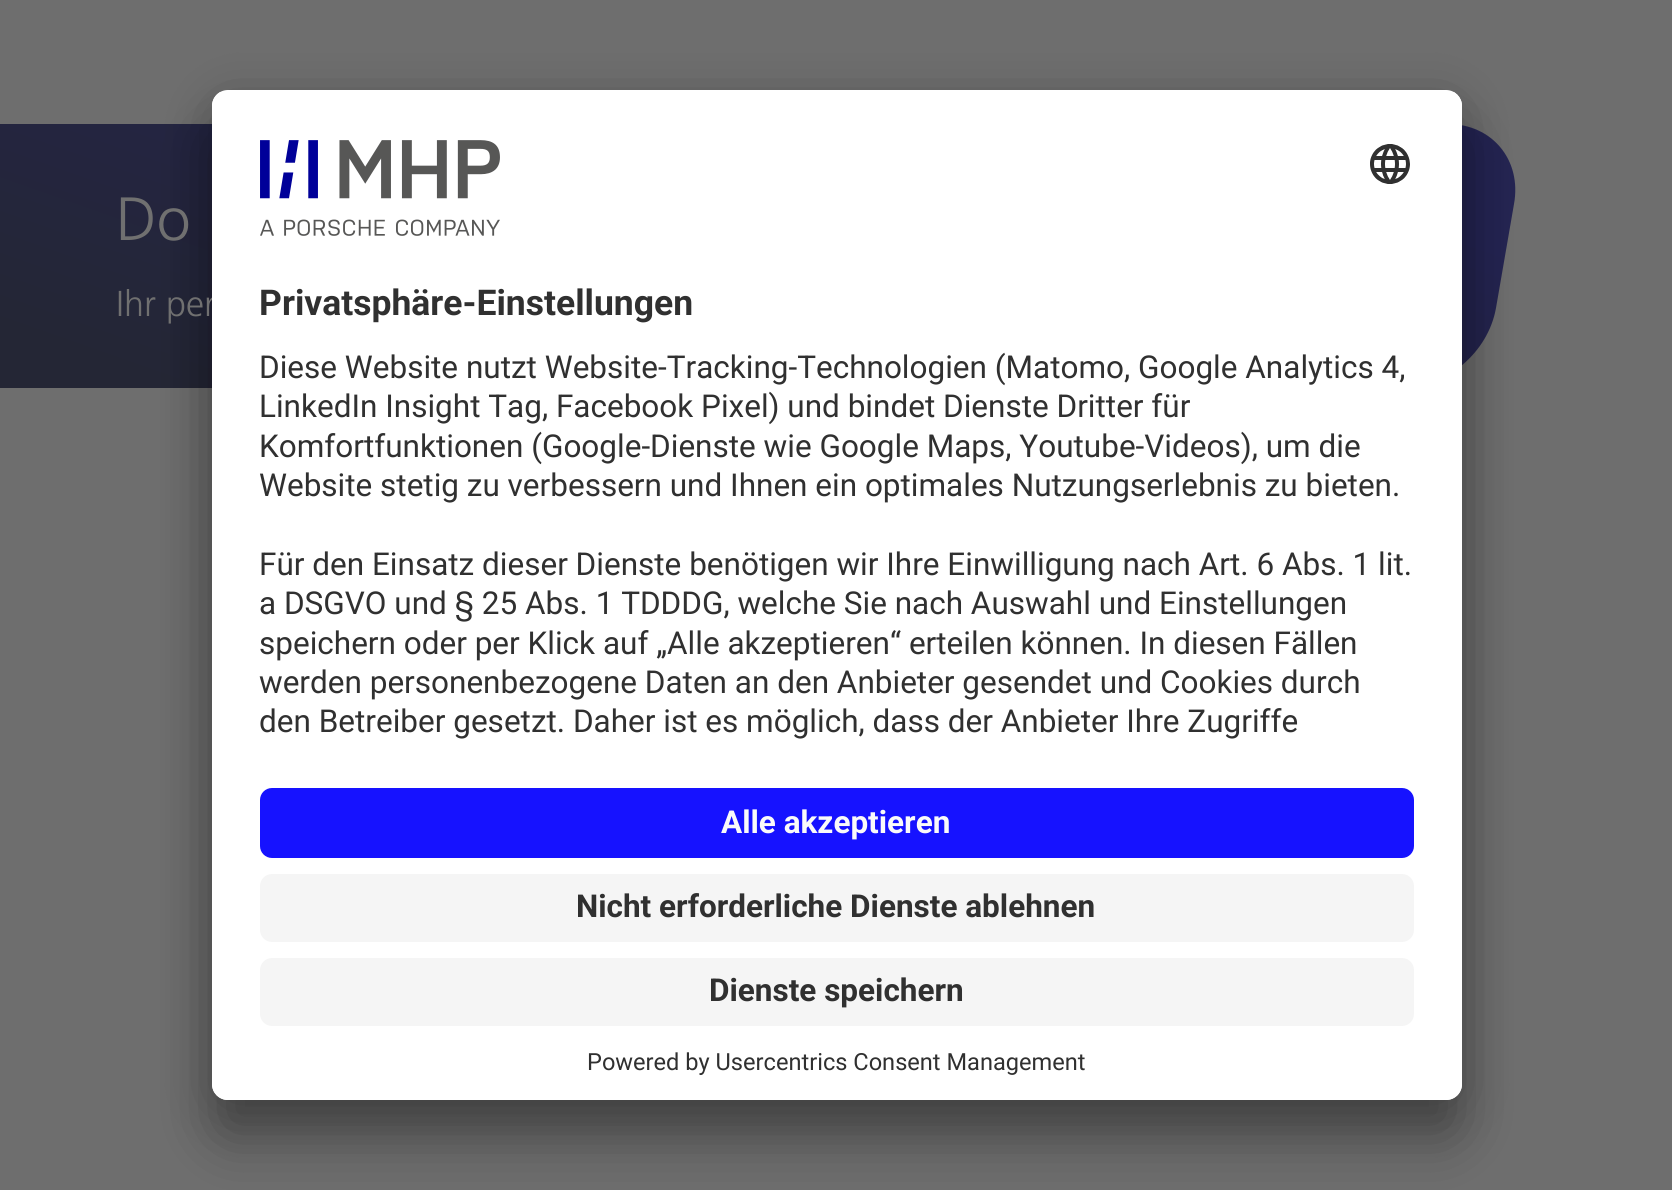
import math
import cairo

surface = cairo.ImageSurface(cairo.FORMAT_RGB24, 1672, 1190)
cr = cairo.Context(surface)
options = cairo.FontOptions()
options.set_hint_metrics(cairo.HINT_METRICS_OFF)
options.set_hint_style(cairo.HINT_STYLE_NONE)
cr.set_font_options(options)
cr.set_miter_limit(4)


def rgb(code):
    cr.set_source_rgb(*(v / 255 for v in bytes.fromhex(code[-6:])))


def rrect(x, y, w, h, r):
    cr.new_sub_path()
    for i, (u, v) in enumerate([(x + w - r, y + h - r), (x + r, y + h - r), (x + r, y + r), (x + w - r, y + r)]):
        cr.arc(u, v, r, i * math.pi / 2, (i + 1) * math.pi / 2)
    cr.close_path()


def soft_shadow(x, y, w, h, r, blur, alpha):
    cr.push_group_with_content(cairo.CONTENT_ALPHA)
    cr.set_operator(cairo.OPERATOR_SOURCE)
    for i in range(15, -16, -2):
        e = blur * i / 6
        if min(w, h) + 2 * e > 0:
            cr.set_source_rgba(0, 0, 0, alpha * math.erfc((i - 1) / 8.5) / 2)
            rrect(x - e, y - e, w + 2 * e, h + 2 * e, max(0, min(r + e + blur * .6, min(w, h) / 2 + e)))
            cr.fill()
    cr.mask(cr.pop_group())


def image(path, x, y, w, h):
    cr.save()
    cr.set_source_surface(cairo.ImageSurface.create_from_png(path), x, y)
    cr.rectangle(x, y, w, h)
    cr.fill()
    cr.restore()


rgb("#6e6e6e")
cr.paint()
gradient = cairo.LinearGradient(764, -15, 573, 527)
gradient.add_color_stop_rgba(0, 0.141, 0.141, 0.322, 1)
gradient.add_color_stop_rgba(1, 0.141, 0.149, 0.208, 1)
cr.set_source(gradient)
cr.new_path()
cr.move_to(-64, 124)
cr.line_to(1448, 124)
cr.curve_to(1492, 124, 1522, 160, 1514, 204)
cr.line_to(1496, 308)
cr.curve_to(1488, 353, 1446, 388, 1401, 388)
cr.line_to(-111, 388)
cr.curve_to(-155, 388, -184, 353, -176, 308)
cr.line_to(-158, 204)
cr.curve_to(-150, 160, -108, 124, -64, 124)
cr.close_path()
cr.fill()
rgb("#000000")
soft_shadow(212, 130, 1250, 1010, 16, 28, 0.3)
soft_shadow(212, 100, 1250, 1010, 16, 26, 0.22)
cr.select_font_face("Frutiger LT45 Light")
cr.set_font_size(61)
rgb("#707070")
cr.move_to(116, 240)
cr.show_text("Do")
cr.set_font_size(36)
cr.move_to(116, 316)
cr.show_text("Ihr per")
rgb("#ffffff")
rrect(212, 90, 1250, 1010, 16)
cr.fill()
cr.save()
rrect(212, 90, 1250, 1010, 16)
cr.clip()
cr.new_path()
cr.move_to(228, 90)
cr.line_to(1446, 90)
cr.curve_to(1455, 90, 1462, 97, 1462, 106)
cr.line_to(1462, 764)
cr.line_to(212, 764)
cr.line_to(212, 106)
cr.curve_to(212, 97, 219, 90, 228, 90)
cr.close_path()
cr.clip()
cr.rectangle(212, 92, 1250, 672)
cr.fill()
cr.restore()
image("img/1.png", 260, 140, 240, 96)
image("img/2.png", 1370, 144, 40, 40)
cr.select_font_face("Roboto", cairo.FONT_SLANT_NORMAL, cairo.FONT_WEIGHT_BOLD)
cr.set_font_size(35.5)
rgb("#303030")
cr.move_to(259, 315)
cr.show_text("Privatsphäre-Einstellungen")
cr.select_font_face("Roboto")
cr.set_font_size(31.5)
for x, y, s in [
    (259, 378, "Diese Website nutzt Website-Tracking-Technologien (Matomo, Google Analytics 4,"),
    (259, 417, "LinkedIn Insight Tag, Facebook Pixel) und bindet Dienste Dritter für"),
    (259, 457, "Komfortfunktionen (Google-Dienste wie Google Maps, Youtube-Videos), um die"),
    (259, 496, "Website stetig zu verbessern und Ihnen ein optimales Nutzungserlebnis zu bieten."),
    (259, 575, "Für den Einsatz dieser Dienste benötigen wir Ihre Einwilligung nach Art. 6 Abs. 1 lit."),
    (259, 614, "a DSGVO und § 25 Abs. 1 TDDDG, welche Sie nach Auswahl und Einstellungen"),
    (259, 654, "speichern oder per Klick auf „Alle akzeptieren“ erteilen können. In diesen Fällen"),
    (259, 693, "werden personenbezogene Daten an den Anbieter gesendet und Cookies durch"),
    (259, 732, "den Betreiber gesetzt. Daher ist es möglich, dass der Anbieter Ihre Zugriffe"),
]:
    cr.move_to(x, y)
    cr.show_text(s)
rgb("#ffffff")
cr.new_path()
cr.move_to(212, 764)
cr.line_to(1462, 764)
cr.line_to(1462, 1084)
cr.curve_to(1462, 1093, 1455, 1100, 1446, 1100)
cr.line_to(228, 1100)
cr.curve_to(219, 1100, 212, 1093, 212, 1084)
cr.close_path()
cr.fill()
rgb("#1612ff")
rrect(260, 788, 1154, 70, 12)
cr.fill()
cr.select_font_face("Roboto", cairo.FONT_SLANT_NORMAL, cairo.FONT_WEIGHT_BOLD)
rgb("#fafafa")
cr.move_to(721, 833)
cr.show_text("Alle akzeptieren")
rgb("#f5f5f5")
rrect(260, 874, 1154, 68, 12)
cr.fill()
rgb("#303030")
cr.move_to(576, 917)
cr.show_text("Nicht erforderliche Dienste ablehnen")
rgb("#f5f5f5")
rrect(260, 958, 1154, 68, 12)
cr.fill()
rgb("#303030")
cr.move_to(709, 1001)
cr.show_text("Dienste speichern")
cr.select_font_face("Roboto")
cr.set_font_size(23.6)
cr.move_to(587, 1070)
cr.show_text("Powered by Usercentrics Consent Management")
surface.write_to_png("page.png")
